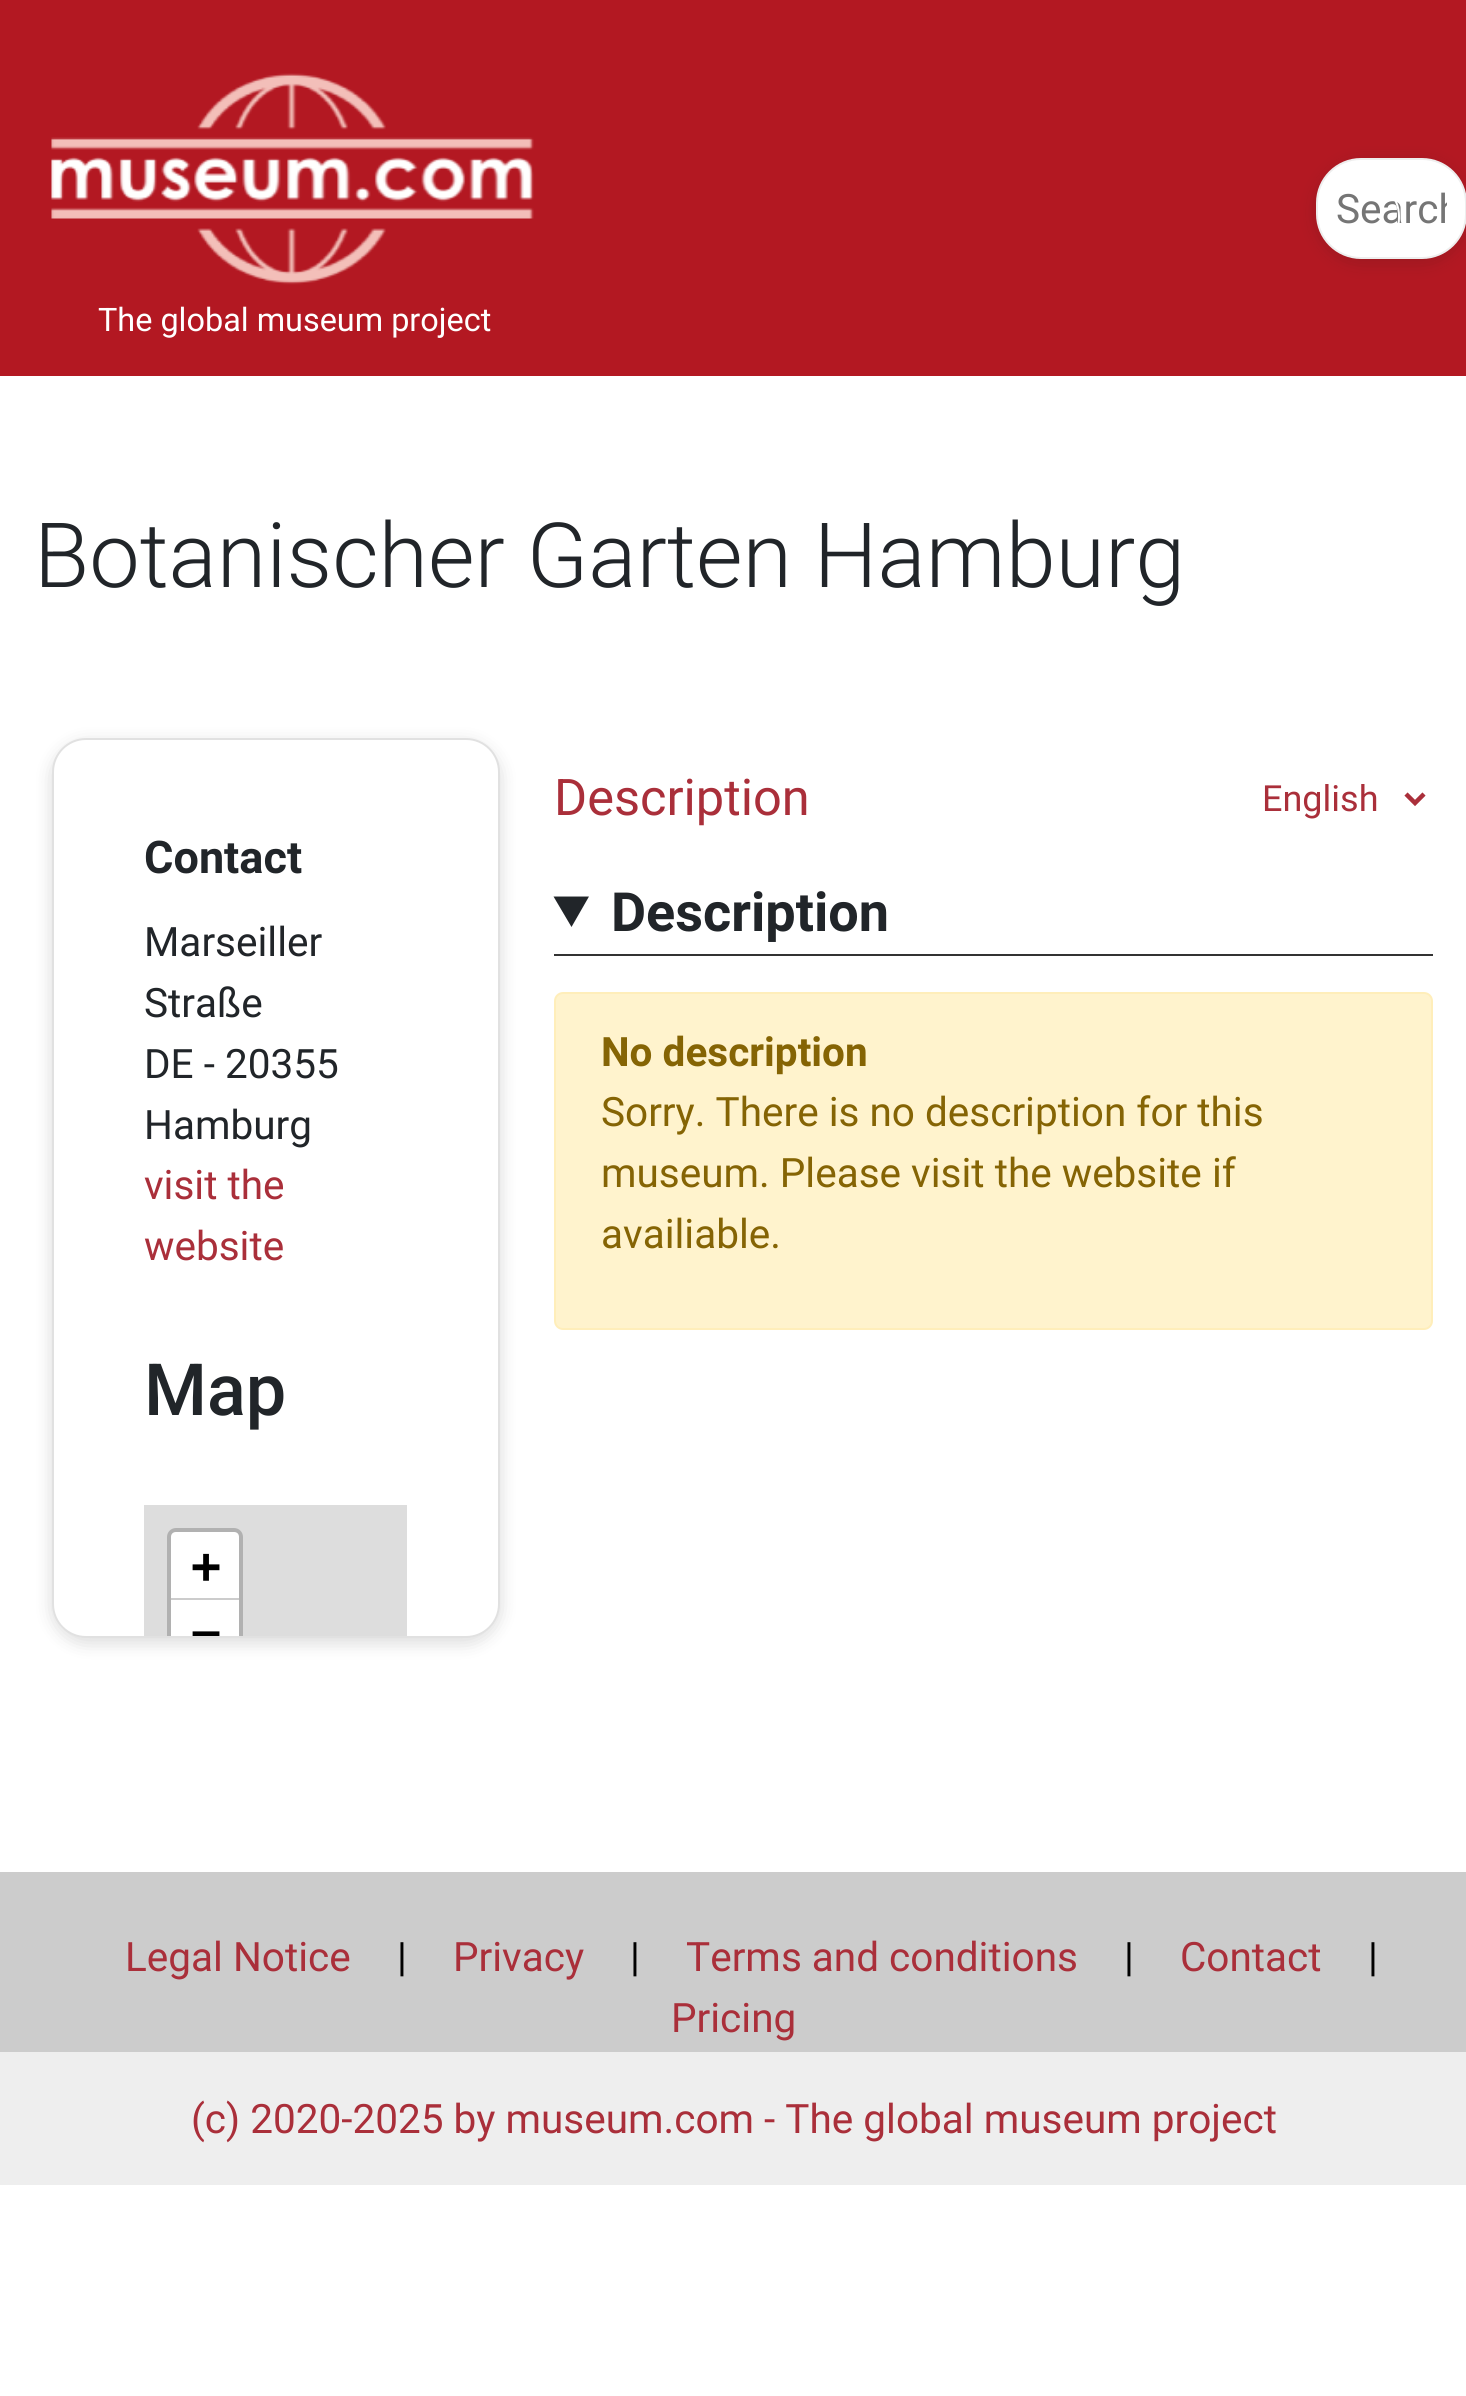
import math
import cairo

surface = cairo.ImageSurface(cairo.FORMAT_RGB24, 1466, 2396)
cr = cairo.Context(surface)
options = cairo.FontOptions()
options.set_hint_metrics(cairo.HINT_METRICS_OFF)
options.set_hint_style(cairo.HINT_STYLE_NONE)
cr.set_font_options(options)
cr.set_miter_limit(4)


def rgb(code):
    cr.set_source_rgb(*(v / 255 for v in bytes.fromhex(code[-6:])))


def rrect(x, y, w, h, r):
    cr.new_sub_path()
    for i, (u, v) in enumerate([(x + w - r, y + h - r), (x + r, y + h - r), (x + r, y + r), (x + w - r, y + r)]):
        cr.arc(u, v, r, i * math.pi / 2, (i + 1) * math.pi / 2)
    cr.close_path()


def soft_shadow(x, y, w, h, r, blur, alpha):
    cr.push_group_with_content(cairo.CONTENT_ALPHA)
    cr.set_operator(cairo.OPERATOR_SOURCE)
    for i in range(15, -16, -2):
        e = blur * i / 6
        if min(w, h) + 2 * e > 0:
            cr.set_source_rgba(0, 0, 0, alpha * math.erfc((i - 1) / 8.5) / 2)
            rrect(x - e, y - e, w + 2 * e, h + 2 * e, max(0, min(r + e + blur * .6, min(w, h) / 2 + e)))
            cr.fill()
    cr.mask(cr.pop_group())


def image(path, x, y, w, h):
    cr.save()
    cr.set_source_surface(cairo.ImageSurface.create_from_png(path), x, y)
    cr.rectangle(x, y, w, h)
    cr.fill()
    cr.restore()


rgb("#ffffff")
cr.paint()
rgb("#b31822")
cr.rectangle(0, 0, 1466, 376)
cr.fill()
rgb("#191919")
soft_shadow(1316, 162, 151, 101, 45, 9, 0.16)
rgb("#ffffff")
rrect(1317, 159, 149, 99, 44)
cr.fill_preserve()
rgb("#eeeeee")
cr.stroke()
image("img/1.png", 51, 73, 483, 212)
rgb("#191919")
soft_shadow(52, 743, 448, 900, 34, 9, 0.16)
rgb("#ffffff")
rrect(52, 738, 448, 900, 34)
cr.fill()
rrect(53, 739, 446, 898, 33)
cr.set_source_rgba(0, 0, 0, 0.12)
cr.stroke()
rgb("#dddddd")
cr.rectangle(144, 1505, 263, 131)
cr.fill()
rgb("#b1b1b1")
cr.new_path()
cr.move_to(176, 1528)
cr.curve_to(171, 1528, 167, 1532, 167, 1537)
cr.line_to(167, 1636)
cr.line_to(172, 1636)
cr.line_to(172, 1537)
cr.curve_to(172, 1535, 174, 1533, 176, 1533)
cr.line_to(234, 1533)
cr.curve_to(236, 1533, 238, 1535, 238, 1537)
cr.line_to(238, 1636)
cr.line_to(243, 1636)
cr.line_to(243, 1537)
cr.curve_to(243, 1532, 239, 1528, 234, 1528)
cr.close_path()
cr.fill()
rgb("#ffffff")
cr.new_path()
cr.move_to(176, 1532)
cr.line_to(234, 1532)
cr.curve_to(237, 1532, 239, 1534, 239, 1537)
cr.line_to(239, 1600)
cr.line_to(171, 1600)
cr.line_to(171, 1537)
cr.curve_to(171, 1534, 173, 1532, 176, 1532)
cr.close_path()
cr.fill()
rgb("#cccccc")
cr.rectangle(171, 1598, 68, 2)
cr.fill()
rgb("#ffffff")
cr.rectangle(171, 1600, 68, 36)
cr.fill()
cr.new_path()
cr.move_to(1406, 794)
cr.line_to(1415, 803)
cr.line_to(1424, 794)
rgb("#aa2f3a")
cr.set_line_width(4.5)
cr.stroke()
rgb("#333333")
cr.rectangle(554, 954, 879, 2)
cr.fill()
rgb("#212529")
cr.new_path()
cr.move_to(553.5, 896.5)
cr.line_to(589, 896.5)
cr.line_to(571.5, 927)
cr.close_path()
cr.fill()
rgb("#fff3cd")
rrect(555, 993, 877, 336, 8)
cr.fill_preserve()
rgb("#ffeeba")
cr.set_line_width(2)
cr.stroke()
rgb("#cccccc")
cr.rectangle(0, 1872, 1466, 180)
cr.fill()
rgb("#eeeeee")
cr.rectangle(0, 2052, 1466, 133)
cr.fill()
cr.save()
cr.rectangle(1337, 185, 110, 47)
cr.clip()
cr.select_font_face("Roboto")
cr.set_font_size(40.5)
rgb("#757575")
cr.move_to(1336, 223)
cr.show_text("Search")
cr.restore()
rrect(1329, 181, 70, 72, 35)
rgb("#ffffff")
cr.stroke()
cr.select_font_face("Roboto")
cr.set_font_size(32.4)
cr.move_to(98, 331)
cr.show_text("The global museum project")
cr.select_font_face("Roboto Light")
cr.set_font_size(90)
rgb("#212529")
cr.move_to(34, 587)
cr.show_text("Botanischer Garten Hamburg")
cr.select_font_face("Roboto", cairo.FONT_SLANT_NORMAL, cairo.FONT_WEIGHT_BOLD)
cr.set_font_size(45)
cr.move_to(144, 873)
cr.show_text("Contact")
cr.select_font_face("Roboto")
cr.set_font_size(40.5)
for x, y, s in [
    (144, 956, "Marseiller"),
    (144, 1017, "Straße"),
    (144, 1078, "DE - 20355"),
    (144, 1139, "Hamburg"),
]:
    cr.move_to(x, y)
    cr.show_text(s)
rgb("#aa2f3a")
cr.move_to(144, 1199)
cr.show_text("visit the")
cr.move_to(144, 1260)
cr.show_text("website")
cr.select_font_face("Roboto Medium")
cr.set_font_size(72)
rgb("#212529")
cr.move_to(144, 1415)
cr.show_text("Map")
cr.select_font_face("DejaVu Sans Mono", cairo.FONT_SLANT_NORMAL, cairo.FONT_WEIGHT_BOLD)
cr.set_font_size(50)
rgb("#000000")
cr.move_to(191, 1583)
cr.show_text("+")
cr.save()
rrect(54, 740, 443, 896, 32)
cr.clip()
cr.move_to(191, 1650)
cr.show_text("−")
cr.restore()
cr.select_font_face("Roboto")
cr.set_font_size(50.5)
rgb("#aa2f3a")
cr.move_to(554, 815)
cr.show_text("Description")
cr.set_font_size(36)
cr.move_to(1262, 811)
cr.show_text("English")
cr.select_font_face("Roboto", cairo.FONT_SLANT_NORMAL, cairo.FONT_WEIGHT_BOLD)
cr.set_font_size(54)
rgb("#212529")
cr.move_to(611, 931)
cr.show_text("Description")
cr.set_font_size(40.5)
rgb("#856404")
cr.move_to(601, 1066)
cr.show_text("No description")
cr.select_font_face("Roboto")
for x, y, s in [
    (601, 1126, "Sorry. There is no description for this"),
    (601, 1187, "museum. Please visit the website if"),
    (601, 1248, "availiable."),
]:
    cr.move_to(x, y)
    cr.show_text(s)
rgb("#aa2f3a")
cr.move_to(125, 1971)
cr.show_text("Legal Notice")
rgb("#000000")
cr.move_to(397, 1971)
cr.show_text("|")
rgb("#aa2f3a")
cr.move_to(453, 1971)
cr.show_text("Privacy")
rgb("#000000")
cr.move_to(630, 1971)
cr.show_text("|")
rgb("#aa2f3a")
cr.move_to(686, 1971)
cr.show_text("Terms and conditions")
rgb("#000000")
cr.move_to(1124, 1971)
cr.show_text("|")
rgb("#aa2f3a")
cr.move_to(1180, 1971)
cr.show_text("Contact")
rgb("#000000")
cr.move_to(1368, 1971)
cr.show_text("|")
rgb("#aa2f3a")
cr.move_to(671, 2032)
cr.show_text("Pricing")
cr.move_to(191, 2133)
cr.show_text("(c) 2020-2025 by museum.com - The global museum project")
surface.write_to_png("page.png")
